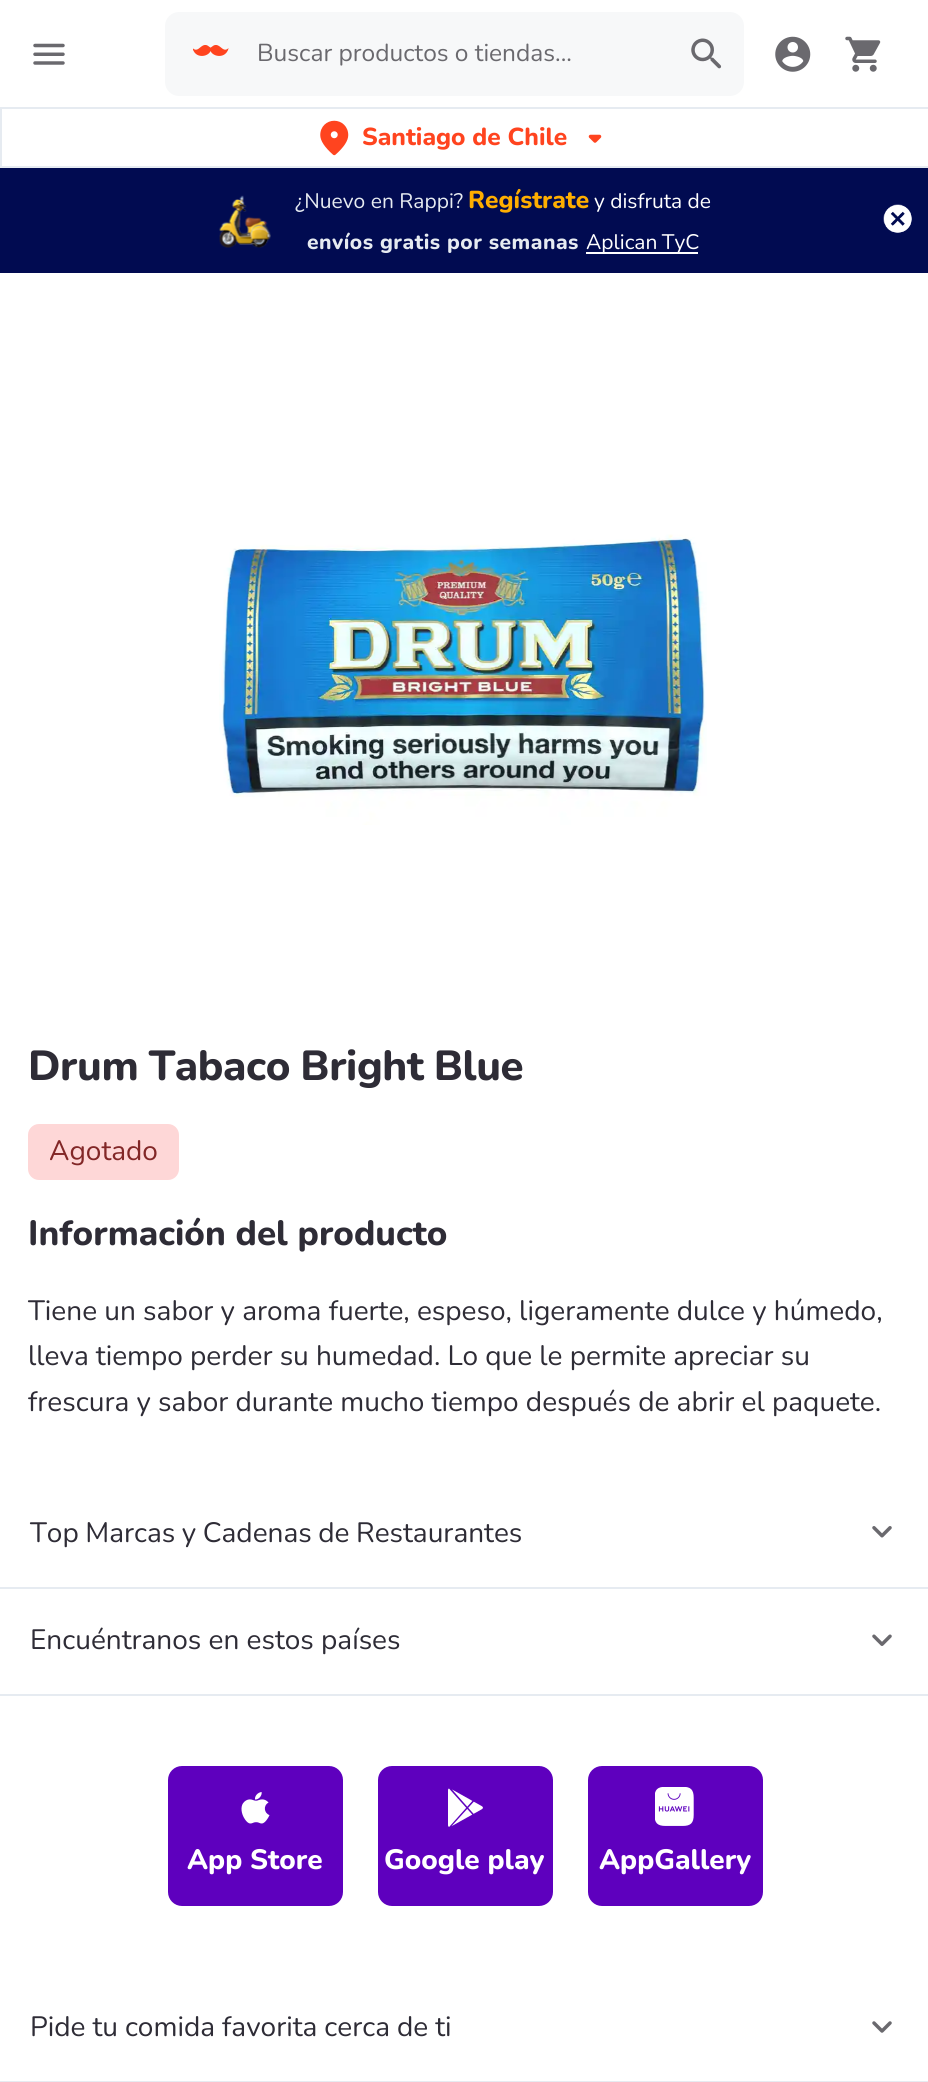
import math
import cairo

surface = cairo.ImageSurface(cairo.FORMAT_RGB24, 928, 2082)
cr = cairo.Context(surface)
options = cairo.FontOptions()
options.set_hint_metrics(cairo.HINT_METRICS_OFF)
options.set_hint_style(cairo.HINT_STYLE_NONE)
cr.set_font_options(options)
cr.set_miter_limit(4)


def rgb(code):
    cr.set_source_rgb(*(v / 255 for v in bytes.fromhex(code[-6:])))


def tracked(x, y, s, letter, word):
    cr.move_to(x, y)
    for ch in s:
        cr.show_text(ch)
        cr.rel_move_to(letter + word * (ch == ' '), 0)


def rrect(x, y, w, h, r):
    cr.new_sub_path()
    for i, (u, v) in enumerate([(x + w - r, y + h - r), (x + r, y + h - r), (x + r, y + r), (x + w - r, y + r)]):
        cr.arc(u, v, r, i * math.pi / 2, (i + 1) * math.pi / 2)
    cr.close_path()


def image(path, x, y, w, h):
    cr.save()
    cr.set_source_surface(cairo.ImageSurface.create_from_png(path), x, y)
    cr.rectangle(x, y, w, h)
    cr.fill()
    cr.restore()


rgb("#ffffff")
cr.paint()
rgb("#e6ebf1")
cr.rectangle(0, 166, 928, 2)
cr.fill()
image("img/1.png", 33, 43, 32, 22)
rgb("#f7f8f9")
rrect(165, 12, 579, 84, 14)
cr.fill()
image("img/2.png", 193, 45, 36, 11)
image("img/3.png", 691, 38, 31, 31)
image("img/4.png", 775, 36, 36, 36)
image("img/5.png", 845, 36, 36, 36)
rgb("#e6ebf1")
cr.rectangle(0, 107, 928, 2)
cr.fill()
cr.rectangle(0, 107, 2, 59)
cr.fill()
image("img/6.png", 320, 120, 29, 36)
image("img/7.png", 588, 134, 14, 9)
rgb("#010b51")
cr.rectangle(0, 168, 928, 105)
cr.fill()
image("img/8.png", 219, 195, 52, 53)
rgb("#ffffff")
cr.rectangle(586, 252, 112, 2)
cr.fill()
image("img/9.png", 883, 204, 29, 29)
image("img/10.png", 219, 534, 488, 291)
rgb("#fed7d7")
rrect(28, 1124, 151, 56, 11)
cr.fill()
rgb("#e6ebf1")
cr.rectangle(0, 1587, 928, 2)
cr.fill()
image("img/11.png", 872, 1526, 20, 12)
cr.rectangle(0, 1694, 928, 2)
cr.fill()
image("img/12.png", 872, 1634, 20, 12)
rgb("#5e00be")
rrect(168, 1766, 175, 140, 14)
cr.fill()
image("img/13.png", 241, 1792, 29, 32)
rrect(378, 1766, 175, 140, 14)
cr.fill()
image("img/14.png", 448, 1788, 35, 39)
rrect(588, 1766, 175, 140, 14)
cr.fill()
image("img/15.png", 655, 1787, 39, 39)
rgb("#e6ebf1")
cr.rectangle(0, 2081, 928, 1)
cr.fill()
image("img/16.png", 872, 2021, 20, 12)
cr.select_font_face("Nunito")
cr.set_font_size(24.5)
rgb("#6a696e")
cr.move_to(257, 61)
cr.show_text("Buscar productos o tiendas...")
cr.select_font_face("Nunito ExtraBold")
rgb("#ff441f")
cr.move_to(362, 145)
cr.show_text("Santiago de Chile")
cr.select_font_face("Nunito")
cr.set_font_size(21)
rgb("#e6ebf1")
cr.move_to(295, 208)
cr.show_text("¿Nuevo en Rappi?")
cr.select_font_face("Nunito ExtraBold")
cr.set_font_size(24.5)
rgb("#ffae00")
cr.move_to(468, 208)
cr.show_text("Regístrate")
cr.select_font_face("Nunito")
cr.set_font_size(21)
rgb("#ffffff")
cr.move_to(594, 208)
cr.show_text("y disfruta de")
cr.select_font_face("Nunito ExtraBold")
rgb("#e6ebf1")
tracked(307, 249, "envíos gratis por semanas", 0.5, 0)
cr.select_font_face("Nunito")
rgb("#ffffff")
tracked(586, 249, "Aplican TyC", 0, -1)
cr.select_font_face("Nunito ExtraBold")
cr.set_font_size(42)
rgb("#2e2c36")
tracked(28, 1080, "Drum Tabaco Bright Blue", -0.4, -1)
cr.select_font_face("Nunito")
cr.set_font_size(28)
rgb("#822727")
cr.move_to(49, 1160)
cr.show_text("Agotado")
cr.select_font_face("Nunito ExtraBold")
cr.set_font_size(35)
rgb("#2e2c36")
cr.move_to(28, 1245)
cr.show_text("Información del producto")
cr.select_font_face("Nunito")
cr.set_font_size(28)
cr.move_to(28, 1320)
cr.show_text("Tiene un sabor y aroma fuerte, espeso, ligeramente dulce y húmedo,")
tracked(28, 1365, "lleva tiempo perder su humedad. Lo que le permite apreciar su", 0, -0.1)
cr.move_to(28, 1411)
cr.show_text("frescura y sabor durante mucho tiempo después de abrir el paquete.")
tracked(30, 1542, "Top Marcas y Cadenas de Restaurantes", 0, -0.75)
cr.move_to(30, 1649)
cr.show_text("Encuéntranos en estos países")
cr.select_font_face("Nunito ExtraBold")
rgb("#ffffff")
for x, y, s in [
    (187, 1869, "App Store"),
    (384, 1869, "Google play"),
    (599, 1869, "AppGallery"),
]:
    cr.move_to(x, y)
    cr.show_text(s)
cr.select_font_face("Nunito")
rgb("#2e2c36")
tracked(30, 2036, "Pide tu comida favorita cerca de ti", 0, -0.25)
surface.write_to_png("page.png")
